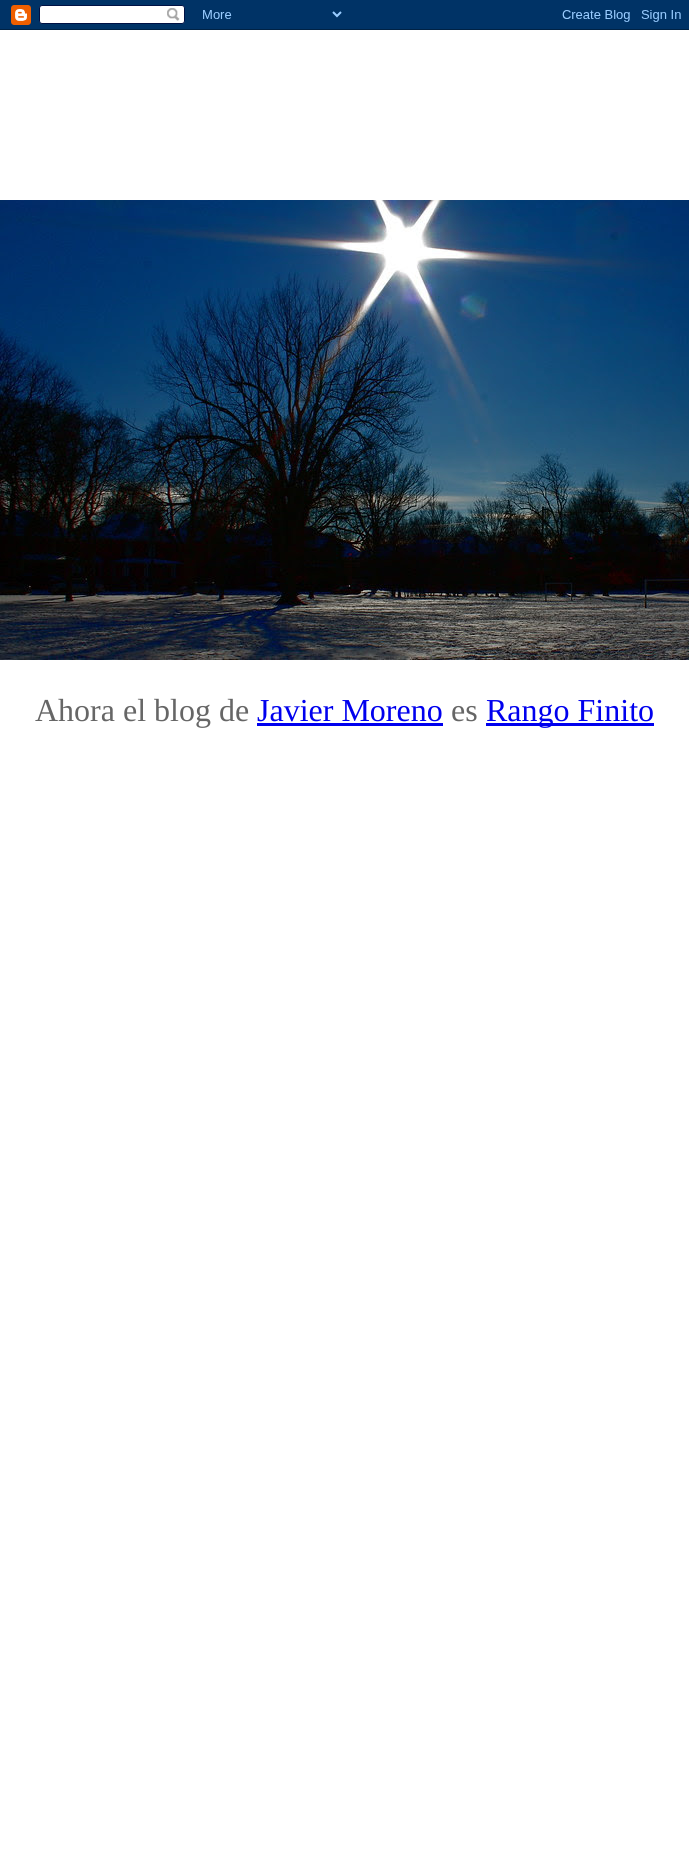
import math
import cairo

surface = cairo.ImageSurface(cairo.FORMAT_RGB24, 689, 1858)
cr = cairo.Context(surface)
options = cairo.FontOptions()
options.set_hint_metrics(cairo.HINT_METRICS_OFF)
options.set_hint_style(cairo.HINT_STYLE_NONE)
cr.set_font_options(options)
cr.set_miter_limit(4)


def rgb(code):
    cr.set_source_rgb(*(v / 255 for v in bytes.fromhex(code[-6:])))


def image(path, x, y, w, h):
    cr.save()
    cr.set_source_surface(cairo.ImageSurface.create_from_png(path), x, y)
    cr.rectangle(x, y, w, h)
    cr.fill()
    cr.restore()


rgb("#ffffff")
cr.paint()
image("img/1.png", 0, 0, 689, 30)
image("img/2.png", 0, 200, 689, 460)
rgb("#0000ee")
cr.rectangle(257, 723, 186, 3)
cr.fill()
cr.rectangle(486, 723, 168, 3)
cr.fill()
cr.select_font_face("Liberation Serif")
cr.set_font_size(32)
rgb("#666666")
cr.move_to(35, 721)
cr.show_text("Ahora el blog de")
rgb("#0000ee")
cr.move_to(257, 721)
cr.show_text("Javier Moreno")
rgb("#666666")
cr.move_to(451, 721)
cr.show_text("es")
rgb("#0000ee")
cr.move_to(486, 721)
cr.show_text("Rango Finito")
surface.write_to_png("page.png")
